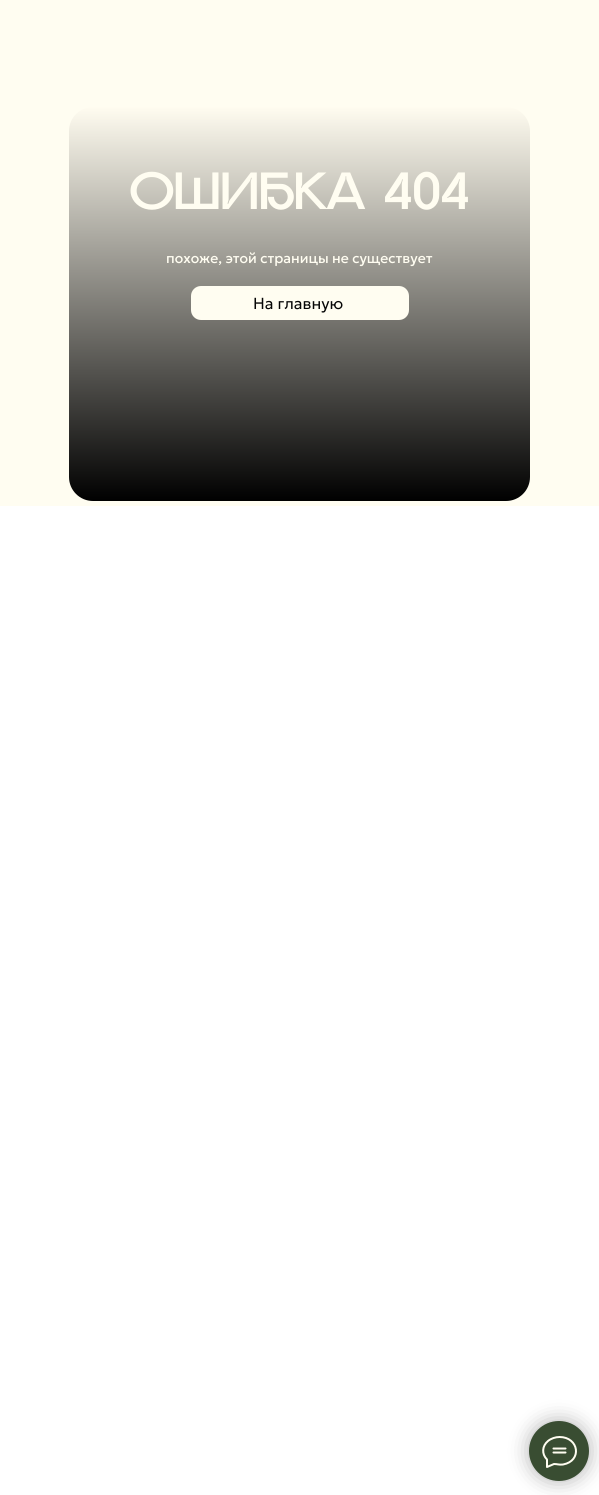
import math
import cairo

surface = cairo.ImageSurface(cairo.FORMAT_RGB24, 599, 1495)
cr = cairo.Context(surface)
options = cairo.FontOptions()
options.set_hint_metrics(cairo.HINT_METRICS_OFF)
options.set_hint_style(cairo.HINT_STYLE_NONE)
cr.set_font_options(options)
cr.set_miter_limit(4)


def rgb(code):
    cr.set_source_rgb(*(v / 255 for v in bytes.fromhex(code[-6:])))


def rrect(x, y, w, h, r):
    cr.new_sub_path()
    for i, (u, v) in enumerate([(x + w - r, y + h - r), (x + r, y + h - r), (x + r, y + r), (x + w - r, y + r)]):
        cr.arc(u, v, r, i * math.pi / 2, (i + 1) * math.pi / 2)
    cr.close_path()


def soft_shadow(x, y, w, h, r, blur, alpha):
    cr.push_group_with_content(cairo.CONTENT_ALPHA)
    cr.set_operator(cairo.OPERATOR_SOURCE)
    for i in range(15, -16, -2):
        e = blur * i / 6
        if min(w, h) + 2 * e > 0:
            cr.set_source_rgba(0, 0, 0, alpha * math.erfc((i - 1) / 8.5) / 2)
            rrect(x - e, y - e, w + 2 * e, h + 2 * e, max(0, min(r + e + blur * .6, min(w, h) / 2 + e)))
            cr.fill()
    cr.mask(cr.pop_group())


rgb("#ffffff")
cr.paint()
rgb("#fffdf1")
cr.rectangle(0, 0, 599, 506)
cr.fill()
gradient = cairo.LinearGradient(300, 501, 300, 107)
gradient.add_color_stop_rgba(0, 0, 0, 0, 1)
gradient.add_color_stop_rgba(1, 1, 0.988, 0.941, 1)
cr.set_source(gradient)
rrect(69, 107, 461, 394, 24)
cr.fill()
rgb("#fffdf1")
rrect(191, 286, 218, 34, 10)
cr.fill()
rgb("#000000")
soft_shadow(529, 1421, 60, 60, 30, 10, 0.3)
rgb("#394d32")
cr.arc(559, 1451, 30, 0, 2 * math.pi)
cr.fill()
cr.new_path()
cr.move_to(553.5, 1448.5)
cr.line_to(565.5, 1448.5)
cr.move_to(553.5, 1452.5)
cr.line_to(565.5, 1452.5)
cr.move_to(547, 1459.5)
cr.curve_to(541.5, 1454, 542, 1446, 548, 1441)
cr.curve_to(551, 1438.5, 555.5, 1437, 559.5, 1437)
cr.curve_to(579, 1437, 582.5, 1461, 563, 1464.5)
cr.curve_to(559, 1465, 557.5, 1464, 554, 1464)
cr.line_to(547, 1467)
cr.line_to(547, 1460)
cr.close_path()
rgb("#fffdf1")
cr.set_line_cap(cairo.LINE_CAP_ROUND)
cr.set_line_join(cairo.LINE_JOIN_ROUND)
cr.stroke()
cr.select_font_face("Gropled", cairo.FONT_SLANT_NORMAL, cairo.FONT_WEIGHT_BOLD)
cr.set_font_size(55)
cr.move_to(130, 209)
cr.show_text("ОШИБКА 404")
cr.select_font_face("Geologica")
cr.set_font_size(14)
cr.move_to(166, 263)
cr.show_text("похоже, этой страницы не существует")
cr.select_font_face("Geologica Light")
cr.set_font_size(16)
rgb("#060606")
cr.move_to(253, 309)
cr.show_text("На главную")
surface.write_to_png("page.png")
